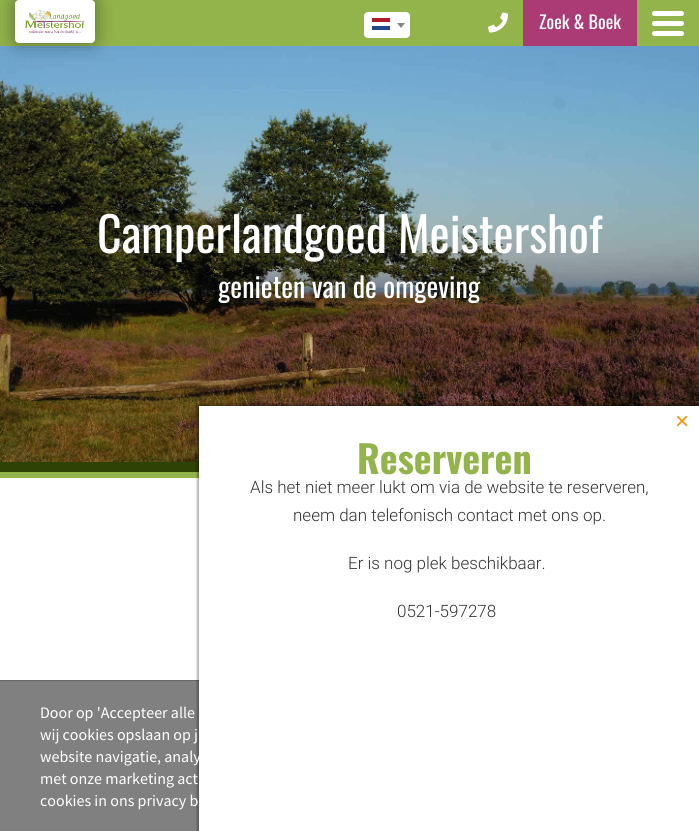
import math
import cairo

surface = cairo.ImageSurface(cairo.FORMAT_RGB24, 699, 831)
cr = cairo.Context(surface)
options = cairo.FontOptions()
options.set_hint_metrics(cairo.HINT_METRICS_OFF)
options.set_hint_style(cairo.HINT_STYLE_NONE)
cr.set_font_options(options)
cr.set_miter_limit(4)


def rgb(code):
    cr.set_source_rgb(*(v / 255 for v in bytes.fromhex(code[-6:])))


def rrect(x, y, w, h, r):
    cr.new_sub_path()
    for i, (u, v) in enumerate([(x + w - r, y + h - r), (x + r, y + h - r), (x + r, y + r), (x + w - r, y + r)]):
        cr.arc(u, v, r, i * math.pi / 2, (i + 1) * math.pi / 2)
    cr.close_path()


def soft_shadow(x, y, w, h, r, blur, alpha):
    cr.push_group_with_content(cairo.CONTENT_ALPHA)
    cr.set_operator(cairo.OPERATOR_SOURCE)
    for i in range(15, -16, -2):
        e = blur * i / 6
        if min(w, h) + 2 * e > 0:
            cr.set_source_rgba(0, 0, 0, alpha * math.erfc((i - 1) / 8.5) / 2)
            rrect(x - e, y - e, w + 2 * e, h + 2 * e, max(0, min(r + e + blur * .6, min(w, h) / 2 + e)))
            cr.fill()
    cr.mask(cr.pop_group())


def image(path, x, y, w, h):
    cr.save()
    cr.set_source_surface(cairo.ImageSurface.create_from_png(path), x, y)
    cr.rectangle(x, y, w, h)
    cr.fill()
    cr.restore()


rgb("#ffffff")
cr.paint()
rgb("#92b44b")
cr.rectangle(0, 0, 699, 46)
cr.fill()
image("img/4.png", 0, 46, 699, 416)
rgb("#000000")
soft_shadow(15, 0, 80, 43, 4, 10, 0.4)
rgb("#ffffff")
rrect(15, 0, 80, 43, 4)
cr.fill()
image("img/1.png", 25, 10, 60, 23)
rrect(652, 11, 32, 5, 2.5)
cr.fill()
rrect(652, 21, 32, 5, 2.5)
cr.fill()
rrect(652, 31, 32, 5, 2.5)
cr.fill()
rrect(364, 12, 46, 26, 4)
cr.fill()
image("img/2.png", 372, 18, 18, 12)
rgb("#888888")
cr.new_path()
cr.move_to(397, 23)
cr.line_to(405, 23)
cr.line_to(401, 28)
cr.close_path()
cr.fill()
image("img/3.png", 488, 12, 20, 21)
for x, y, w, h, color in [
    (523, 0, 114, 46, "#ab3b75"),
    (0, 472, 199, 6, "#92b44b"),
    (0, 462, 199, 10, "#2d4204"),
    (0, 681, 199, 150, "#808080"),
    (0, 680, 199, 1, "#666666"),
]:
    rgb(color)
    cr.rectangle(x, y, w, h)
    cr.fill()
rgb("#000001")
soft_shadow(197, 404, 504, 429, 0, 1, 0.3)
rgb("#ffffff")
cr.rectangle(199, 406, 500, 425)
cr.fill()
cr.select_font_face("Oswald")
cr.set_font_size(18)
cr.move_to(539, 29)
cr.show_text("Zoek & Boek")
cr.set_font_size(48)
cr.move_to(97, 253)
cr.show_text("Camperlandgoed Meistershof")
cr.set_font_size(28)
cr.move_to(218, 298)
cr.show_text("genieten van de omgeving")
cr.select_font_face("Liberation Sans")
cr.set_font_size(24)
rgb("#ff9100")
cr.move_to(675, 429)
cr.show_text("×")
cr.select_font_face("Oswald", cairo.FONT_SLANT_NORMAL, cairo.FONT_WEIGHT_BOLD)
cr.set_font_size(38)
rgb("#92b44b")
cr.move_to(357, 474)
cr.show_text("Reserveren")
cr.select_font_face("Roboto Light")
cr.set_font_size(17)
rgb("#333333")
for x, y, s in [
    (250, 493, "Als het niet meer lukt om via de website te reserveren,"),
    (293, 521, "neem dan telefonisch contact met ons op."),
    (348, 569, "Er is nog plek beschikbaar."),
    (397, 617, "0521-597278"),
]:
    cr.move_to(x, y)
    cr.show_text(s)
cr.select_font_face("Source Sans Pro")
cr.set_font_size(16)
rgb("#ffffff")
for x, y, s in [
    (40, 718, "Door op 'Accepteer alle"),
    (40, 740, "wij cookies opslaan op j"),
    (40, 762, "website navigatie, analy"),
    (40, 784, "met onze marketing act"),
    (40, 806, "cookies in ons privacy b"),
]:
    cr.move_to(x, y)
    cr.show_text(s)
surface.write_to_png("page.png")
